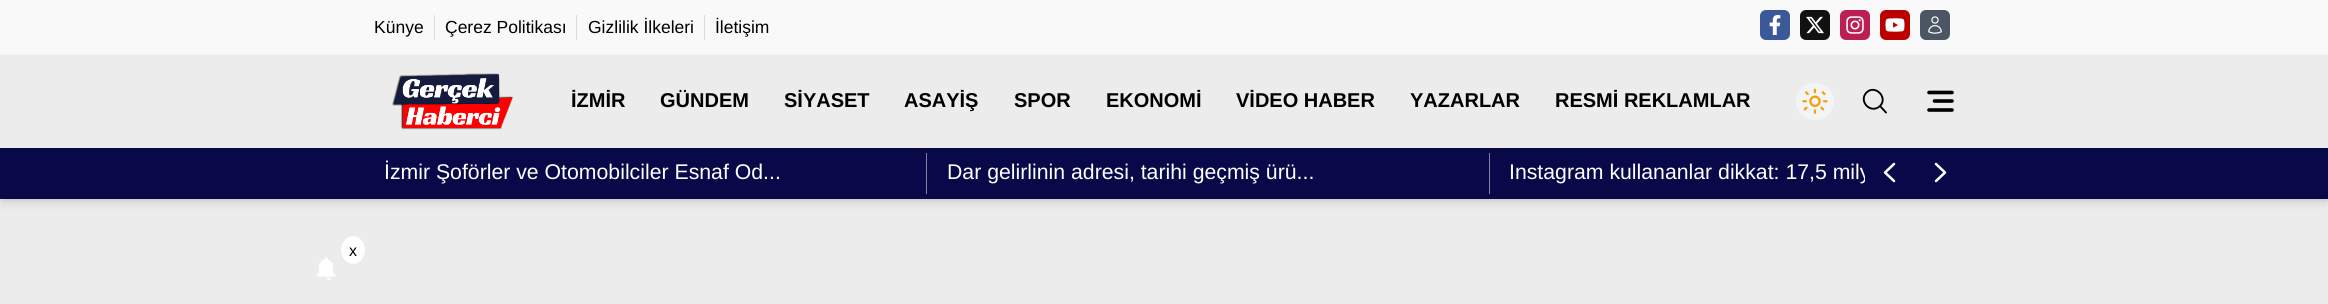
import math
import cairo

surface = cairo.ImageSurface(cairo.FORMAT_RGB24, 2328, 304)
cr = cairo.Context(surface)
options = cairo.FontOptions()
options.set_hint_metrics(cairo.HINT_METRICS_OFF)
options.set_hint_style(cairo.HINT_STYLE_NONE)
cr.set_font_options(options)
cr.set_miter_limit(4)


def rgb(code):
    cr.set_source_rgb(*(v / 255 for v in bytes.fromhex(code[-6:])))


def rrect(x, y, w, h, r):
    cr.new_sub_path()
    for i, (u, v) in enumerate([(x + w - r, y + h - r), (x + r, y + h - r), (x + r, y + r), (x + w - r, y + r)]):
        cr.arc(u, v, r, i * math.pi / 2, (i + 1) * math.pi / 2)
    cr.close_path()


def soft_shadow(x, y, w, h, r, blur, alpha):
    cr.push_group_with_content(cairo.CONTENT_ALPHA)
    cr.set_operator(cairo.OPERATOR_SOURCE)
    for i in range(15, -16, -2):
        e = blur * i / 6
        if min(w, h) + 2 * e > 0:
            cr.set_source_rgba(0, 0, 0, alpha * math.erfc((i - 1) / 8.5) / 2)
            rrect(x - e, y - e, w + 2 * e, h + 2 * e, max(0, min(r + e + blur * .6, min(w, h) / 2 + e)))
            cr.fill()
    cr.mask(cr.pop_group())


def image(path, x, y, w, h):
    cr.save()
    cr.set_source_surface(cairo.ImageSurface.create_from_png(path), x, y)
    cr.rectangle(x, y, w, h)
    cr.fill()
    cr.restore()


rgb("#ececec")
cr.paint()
for x, y, w, h, color in [
    (0, 0, 2328, 54, "#f9f9f9"),
    (0, 54, 2328, 1, "#f3f4f6"),
    (434, 15, 1, 25, "#dbdbdb"),
    (576, 15, 1, 25, "#dbdbdb"),
    (704, 15, 1, 25, "#dbdbdb"),
]:
    rgb(color)
    cr.rectangle(x, y, w, h)
    cr.fill()
rgb("#3b5998")
rrect(1760, 10, 30, 30, 6)
cr.fill()
image("img/1.png", 1769, 15, 12, 20)
rgb("#111111")
rrect(1800, 10, 30, 30, 6)
cr.fill()
image("img/2.png", 1806, 16, 18, 18)
rgb("#bb1f54")
rrect(1840, 10, 30, 30, 6)
cr.fill()
image("img/3.png", 1846, 16, 18, 18)
rgb("#bb0000")
rrect(1880, 10, 30, 30, 6)
cr.fill()
image("img/4.png", 1885, 18, 20, 14)
rgb("#4b5563")
rrect(1920, 10, 30, 30, 6)
cr.fill()
image("img/5.png", 1928, 16, 14, 18)
rgb("#000000")
soft_shadow(3, 153, 2323, 46, 0, 2.5, 0.1)
soft_shadow(1, 154, 2327, 49, 0, 4, 0.1)
for x, y, w, h, color in [
    (0, 148, 2328, 51, "#09094a"),
    (926, 153, 1, 41, "#8484a5"),
    (1489, 153, 1, 41, "#8484a5"),
]:
    rgb(color)
    cr.rectangle(x, y, w, h)
    cr.fill()
rgb("#000000")
soft_shadow(3, 60, 2323, 88, 0, 2.5, 0.1)
cr.new_path()
cr.move_to(1894, 181)
cr.line_to(1885, 172.5)
cr.line_to(1894, 164)
rgb("#ffffff")
cr.set_line_width(2.5)
cr.set_line_cap(cairo.LINE_CAP_ROUND)
cr.set_line_join(cairo.LINE_JOIN_ROUND)
cr.stroke()
cr.new_path()
cr.move_to(1936, 164)
cr.line_to(1945, 172.5)
cr.line_to(1936, 181)
cr.stroke()
rgb("#000000")
soft_shadow(1, 61, 2327, 90, 0, 4, 0.1)
rgb("#ececec")
cr.rectangle(0, 55, 2328, 93)
cr.fill()
image("img/6.png", 392, 73, 121, 57)
rgb("#f3f4f6")
rrect(1796, 83, 38, 37, 18.5)
cr.fill()
image("img/7.png", 1802, 88, 26, 26)
cr.new_path()
cr.move_to(1886, 112.5)
cr.line_to(1880, 106)
cr.move_to(1880, 106)
cr.curve_to(1888.5, 97.5, 1875, 84, 1866.5, 92.5)
cr.curve_to(1858, 101.5, 1871, 114.5, 1880, 106)
cr.close_path()
rgb("#000000")
cr.set_line_width(1.9)
cr.stroke()
cr.new_path()
cr.move_to(1952, 92.5)
cr.line_to(1929, 92.5)
cr.move_to(1952, 101)
cr.line_to(1934.5, 101)
cr.move_to(1952, 110)
cr.line_to(1929, 110)
cr.set_line_width(3.6)
cr.stroke()
rgb("#ffffff")
cr.new_path()
cr.move_to(353, 236)
cr.curve_to(359.5, 236, 365, 242.5, 365, 250)
cr.curve_to(365, 257.5, 359.5, 264, 353, 264)
cr.curve_to(346.5, 264, 341, 257.5, 341, 250)
cr.curve_to(341, 242.5, 346.5, 236, 353, 236)
cr.close_path()
cr.fill()
image("img/8.png", 316, 257, 20, 23)
cr.select_font_face("Liberation Sans")
cr.set_font_size(17.5)
rgb("#000000")
for x, y, s in [
    (374, 33, "Künye"),
    (445, 33, "Çerez Politikası"),
    (588, 33, "Gizlilik İlkeleri"),
    (715, 33, "İletişim"),
]:
    cr.move_to(x, y)
    cr.show_text(s)
cr.select_font_face("Liberation Sans", cairo.FONT_SLANT_NORMAL, cairo.FONT_WEIGHT_BOLD)
cr.set_font_size(20)
for x, y, s in [
    (571, 107, "İZMİR"),
    (660, 107, "GÜNDEM"),
    (784, 107, "SİYASET"),
    (904, 107, "ASAYİŞ"),
    (1014, 107, "SPOR"),
    (1106, 107, "EKONOMİ"),
    (1236, 107, "VİDEO HABER"),
    (1410, 107, "YAZARLAR"),
    (1555, 107, "RESMİ REKLAMLAR"),
]:
    cr.move_to(x, y)
    cr.show_text(s)
cr.select_font_face("Liberation Sans")
cr.set_font_size(21.25)
rgb("#ffffff")
cr.move_to(384, 179)
cr.show_text("İzmir Şoförler ve Otomobilciler Esnaf Od...")
cr.move_to(947, 179)
cr.show_text("Dar gelirlinin adresi, tarihi geçmiş ürü...")
cr.save()
cr.rectangle(1490, 153, 375, 41)
cr.clip()
cr.move_to(1509, 179)
cr.show_text("Instagram kullananlar dikkat: 17,5 mily")
cr.restore()
cr.set_font_size(16)
rgb("#000000")
cr.move_to(349, 256)
cr.show_text("x")
surface.write_to_png("page.png")
